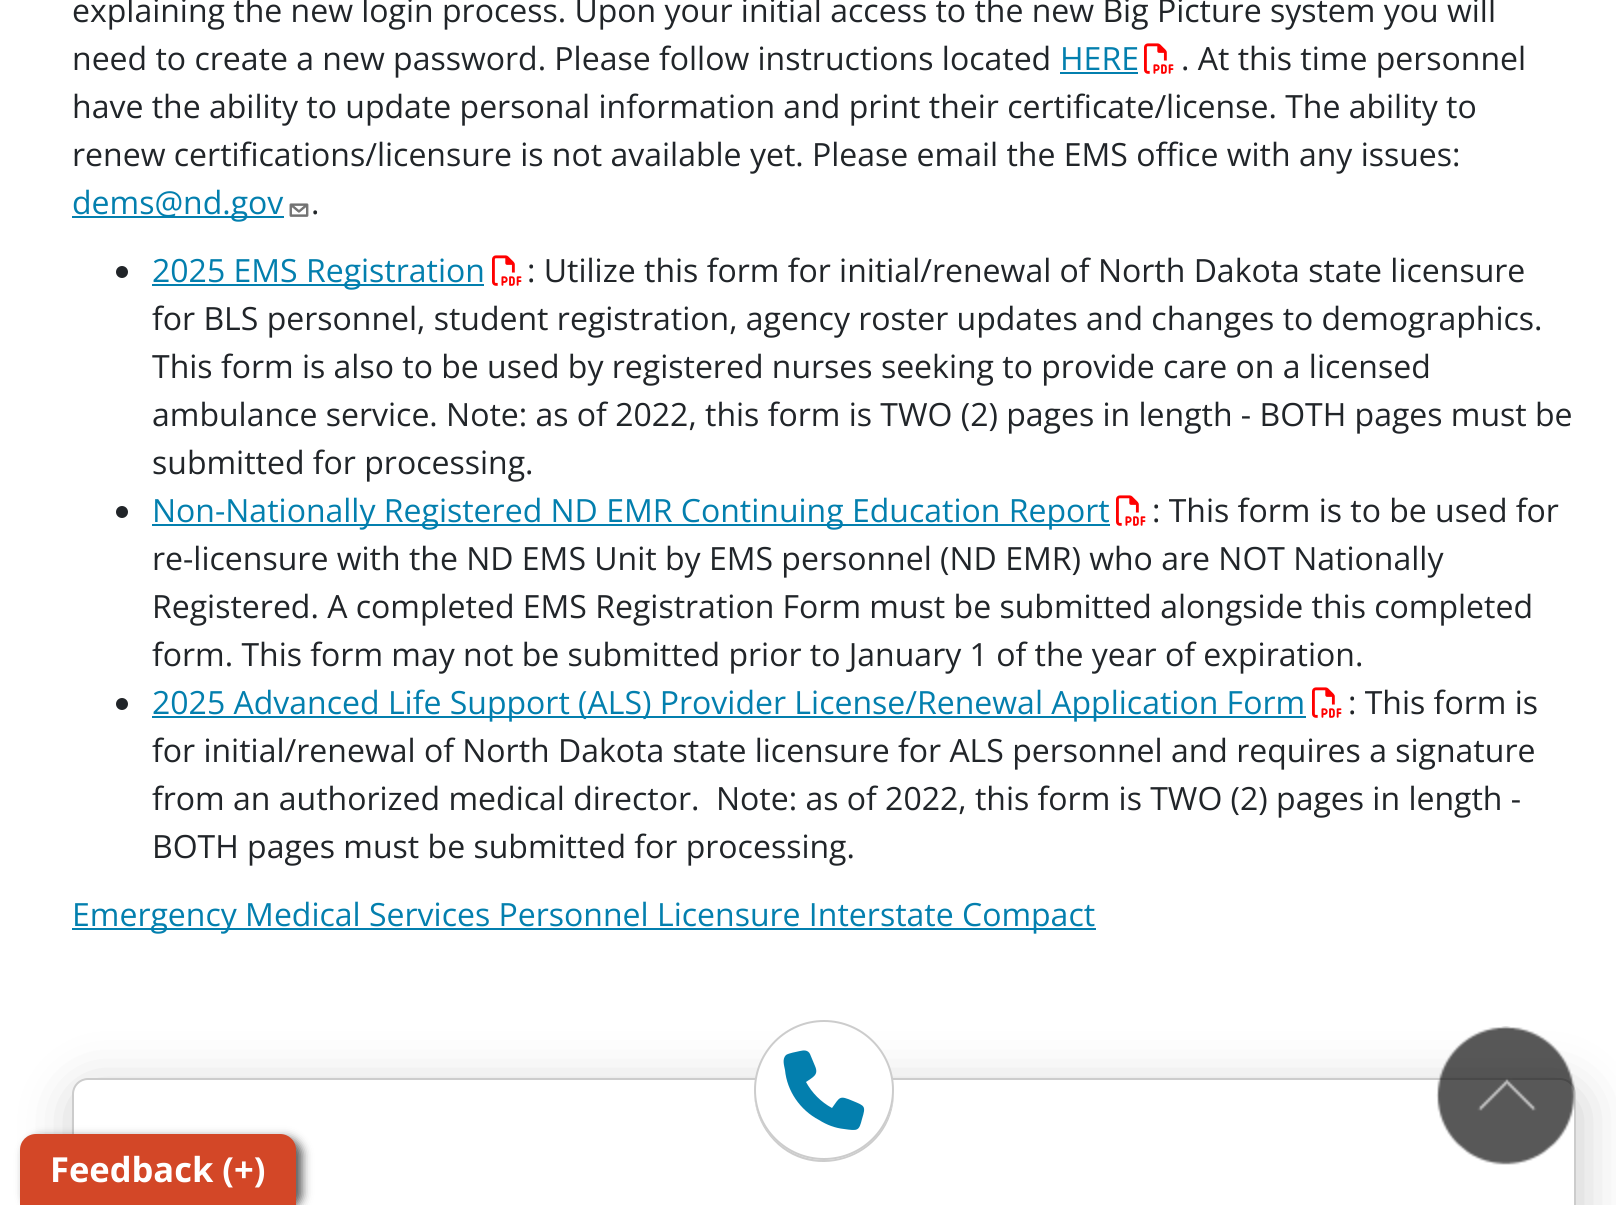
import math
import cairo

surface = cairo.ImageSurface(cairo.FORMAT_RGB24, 1616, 1205)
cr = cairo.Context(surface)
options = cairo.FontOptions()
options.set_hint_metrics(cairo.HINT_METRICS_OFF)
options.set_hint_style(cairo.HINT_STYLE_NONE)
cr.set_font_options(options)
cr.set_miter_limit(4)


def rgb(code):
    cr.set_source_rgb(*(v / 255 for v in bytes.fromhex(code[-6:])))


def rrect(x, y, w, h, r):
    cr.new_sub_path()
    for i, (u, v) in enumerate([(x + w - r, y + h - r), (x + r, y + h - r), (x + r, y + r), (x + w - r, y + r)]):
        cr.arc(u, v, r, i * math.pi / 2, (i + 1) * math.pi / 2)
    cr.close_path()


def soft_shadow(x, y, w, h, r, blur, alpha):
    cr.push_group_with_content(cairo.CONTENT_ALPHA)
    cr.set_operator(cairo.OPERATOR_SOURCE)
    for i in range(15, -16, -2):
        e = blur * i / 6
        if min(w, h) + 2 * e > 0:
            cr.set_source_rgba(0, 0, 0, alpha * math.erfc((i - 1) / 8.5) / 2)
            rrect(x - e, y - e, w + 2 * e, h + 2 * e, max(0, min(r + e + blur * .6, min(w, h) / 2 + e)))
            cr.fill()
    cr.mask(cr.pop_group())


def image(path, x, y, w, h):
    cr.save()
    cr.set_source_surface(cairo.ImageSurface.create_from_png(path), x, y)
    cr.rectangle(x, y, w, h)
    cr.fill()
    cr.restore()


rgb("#ffffff")
cr.paint()
rgb("#037fae")
cr.rectangle(1060, 72, 78, 2)
cr.fill()
image("img/1.png", 1144, 43, 30, 31)
cr.rectangle(72, 216, 212, 2)
cr.fill()
image("img/2.png", 289, 203, 20, 14)
rgb("#212529")
cr.arc(122, 272, 6, 0, 2 * math.pi)
cr.fill()
rgb("#037fae")
cr.rectangle(152, 284, 332, 2)
cr.fill()
image("img/1.png", 492, 255, 30, 31)
rgb("#212529")
cr.arc(122, 512, 6, 0, 2 * math.pi)
cr.fill()
rgb("#037fae")
cr.rectangle(152, 524, 958, 2)
cr.fill()
image("img/1.png", 1116, 495, 30, 31)
rgb("#212529")
cr.arc(122, 704, 6, 0, 2 * math.pi)
cr.fill()
rgb("#037fae")
cr.rectangle(152, 716, 1154, 2)
cr.fill()
image("img/1.png", 1312, 687, 30, 31)
cr.rectangle(72, 928, 1024, 2)
cr.fill()
rgb("#cccccc")
soft_shadow(76, 1090, 1504, 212, 16, 27, 1)
rgb("#ffffff")
rrect(73, 1079, 1502, 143, 15)
cr.fill_preserve()
rgb("#cccccc")
cr.stroke()
cr.new_path()
cr.move_to(754, 1091)
cr.curve_to(754, 1105, 758, 1119, 766, 1131)
cr.curve_to(805, 1189, 895, 1160, 894, 1091)
cr.curve_to(893, 1129, 862, 1160, 824, 1160)
cr.curve_to(786, 1160, 755, 1129, 754, 1091)
cr.close_path()
cr.fill()
rgb("#ffffff")
cr.arc(824, 1090, 69, 0, 2 * math.pi)
cr.fill_preserve()
rgb("#cccccc")
cr.stroke()
rgb("#037fae")
cr.new_path()
cr.move_to(810, 1054)
cr.curve_to(808, 1050, 804, 1050, 800, 1051)
cr.curve_to(796, 1052, 789, 1053, 786, 1055)
cr.curve_to(782, 1059, 784, 1065, 785, 1070)
cr.curve_to(787, 1091, 800, 1110, 819, 1120)
cr.curve_to(827, 1125, 835, 1128, 844, 1129)
cr.curve_to(858, 1131, 859, 1131, 862, 1119)
cr.curve_to(866, 1106, 865, 1106, 853, 1101)
cr.curve_to(839, 1095, 840, 1097, 832, 1108)
cr.curve_to(821, 1102, 812, 1093, 806, 1082)
cr.curve_to(813, 1077, 819, 1075, 815, 1066)
cr.close_path()
cr.fill()
rgb("#555555")
soft_shadow(26, 1138, 276, 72, 16, 5, 1)
rgb("#d34727")
cr.new_path()
cr.move_to(36, 1134)
cr.line_to(280, 1134)
cr.curve_to(289, 1134, 296, 1141, 296, 1150)
cr.line_to(296, 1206)
cr.line_to(20, 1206)
cr.line_to(20, 1150)
cr.curve_to(20, 1141, 27, 1134, 36, 1134)
cr.close_path()
cr.fill()
image("img/3.png", 1436, 1026, 139, 139)
cr.select_font_face("Open Sans")
cr.set_font_size(32)
rgb("#212529")
cr.move_to(72, 22)
cr.show_text("explaining the new login process. Upon your initial access to the new Big Picture system you will")
cr.move_to(72, 70)
cr.show_text("need to create a new password. Please follow instructions located")
rgb("#037fae")
cr.move_to(1060, 70)
cr.show_text("HERE")
rgb("#212529")
for x, y, s in [
    (1181, 70, ". At this time personnel"),
    (72, 118, "have the ability to update personal information and print their certificate/license. The ability to"),
    (72, 166, "renew certifications/licensure is not available yet. Please email the EMS office with any issues:"),
]:
    cr.move_to(x, y)
    cr.show_text(s)
rgb("#037fae")
cr.move_to(72, 214)
cr.show_text("dems@nd.gov")
rgb("#212529")
cr.move_to(311, 214)
cr.show_text(".")
rgb("#037fae")
cr.move_to(152, 282)
cr.show_text("2025 EMS Registration")
rgb("#212529")
for x, y, s in [
    (527, 282, ": Utilize this form for initial/renewal of North Dakota state licensure"),
    (152, 330, "for BLS personnel, student registration, agency roster updates and changes to demographics."),
    (152, 378, "This form is also to be used by registered nurses seeking to provide care on a licensed"),
    (152, 426, "ambulance service. Note: as of 2022, this form is TWO (2) pages in length - BOTH pages must be"),
    (152, 474, "submitted for processing."),
]:
    cr.move_to(x, y)
    cr.show_text(s)
rgb("#037fae")
cr.move_to(152, 522)
cr.show_text("Non-Nationally Registered ND EMR Continuing Education Report")
rgb("#212529")
for x, y, s in [
    (1152, 522, ": This form is to be used for"),
    (152, 570, "re-licensure with the ND EMS Unit by EMS personnel (ND EMR) who are NOT Nationally"),
    (152, 618, "Registered. A completed EMS Registration Form must be submitted alongside this completed"),
    (152, 666, "form. This form may not be submitted prior to January 1 of the year of expiration."),
]:
    cr.move_to(x, y)
    cr.show_text(s)
rgb("#037fae")
cr.move_to(152, 714)
cr.show_text("2025 Advanced Life Support (ALS) Provider License/Renewal Application Form")
rgb("#212529")
for x, y, s in [
    (1348, 714, ": This form is"),
    (152, 762, "for initial/renewal of North Dakota state licensure for ALS personnel and requires a signature"),
    (152, 810, "from an authorized medical director.  Note: as of 2022, this form is TWO (2) pages in length -"),
    (152, 858, "BOTH pages must be submitted for processing."),
]:
    cr.move_to(x, y)
    cr.show_text(s)
rgb("#037fae")
cr.move_to(72, 926)
cr.show_text("Emergency Medical Services Personnel Licensure Interstate Compact")
cr.select_font_face("Open Sans", cairo.FONT_SLANT_NORMAL, cairo.FONT_WEIGHT_BOLD)
cr.set_font_size(34.5)
rgb("#ffffff")
cr.move_to(50, 1182)
cr.show_text("Feedback (+)")
surface.write_to_png("page.png")
